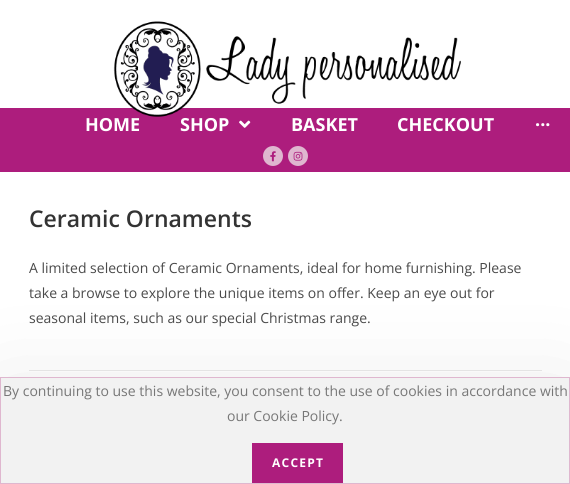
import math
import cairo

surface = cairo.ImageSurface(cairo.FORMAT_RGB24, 570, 484)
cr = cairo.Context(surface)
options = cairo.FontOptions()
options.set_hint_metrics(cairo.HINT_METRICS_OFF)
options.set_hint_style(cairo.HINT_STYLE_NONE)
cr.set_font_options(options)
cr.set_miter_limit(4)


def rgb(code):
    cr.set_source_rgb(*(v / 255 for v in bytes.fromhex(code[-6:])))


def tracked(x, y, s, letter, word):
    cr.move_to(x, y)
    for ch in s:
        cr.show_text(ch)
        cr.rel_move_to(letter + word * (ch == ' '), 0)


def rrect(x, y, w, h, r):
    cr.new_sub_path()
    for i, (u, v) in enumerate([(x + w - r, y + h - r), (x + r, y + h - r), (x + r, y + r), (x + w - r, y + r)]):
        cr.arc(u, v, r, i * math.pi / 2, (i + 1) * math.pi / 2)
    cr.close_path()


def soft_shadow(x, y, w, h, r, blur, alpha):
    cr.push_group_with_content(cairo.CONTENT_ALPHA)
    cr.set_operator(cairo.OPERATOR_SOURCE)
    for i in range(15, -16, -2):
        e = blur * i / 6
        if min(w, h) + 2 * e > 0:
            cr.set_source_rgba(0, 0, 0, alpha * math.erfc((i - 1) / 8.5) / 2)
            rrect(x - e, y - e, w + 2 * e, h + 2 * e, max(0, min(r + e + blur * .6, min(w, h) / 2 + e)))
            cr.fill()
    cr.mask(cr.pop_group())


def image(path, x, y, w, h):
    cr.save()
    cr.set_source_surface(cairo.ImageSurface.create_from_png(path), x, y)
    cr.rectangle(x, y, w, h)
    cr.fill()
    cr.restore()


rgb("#ffffff")
cr.paint()
rgb("#ad1d7d")
cr.rectangle(0, 108, 570, 64)
cr.fill()
image("img/1.png", 113, 21, 348, 96)
image("img/2.png", 239, 120, 12, 8)
rgb("#dfb7cf")
cr.arc(273, 156, 10, 0, 2 * math.pi)
cr.fill()
image("img/3.png", 270, 151, 6, 11)
cr.arc(298, 156, 10, 0, 2 * math.pi)
cr.fill()
image("img/4.png", 293, 151, 10, 10)
rgb("#eaeaea")
cr.rectangle(29, 370, 513, 1)
cr.fill()
rgb("#000000")
soft_shadow(0, 397, 570, 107, 0, 50, 0.1)
rgb("#f2f2f2")
cr.rectangle(0.5, 377.5, 569, 106)
cr.fill_preserve()
rgb("#dfb7cf")
cr.set_line_width(1)
cr.stroke()
rgb("#ad1d7d")
cr.rectangle(252, 443, 91, 40)
cr.fill()
cr.select_font_face("Open Sans", cairo.FONT_SLANT_NORMAL, cairo.FONT_WEIGHT_BOLD)
cr.set_font_size(18)
rgb("#ffffff")
for x, y, s in [
    (85, 131, "HOME"),
    (180, 131, "SHOP"),
    (291, 131, "BASKET"),
    (397, 131, "CHECKOUT"),
    (535, 131, "···"),
]:
    cr.move_to(x, y)
    cr.show_text(s)
cr.select_font_face("Open Sans SemiBold")
cr.set_font_size(23)
rgb("#333333")
cr.move_to(29, 227)
cr.show_text("Ceramic Ornaments")
cr.select_font_face("Open Sans")
cr.set_font_size(14)
rgb("#4a4a4a")
for x, y, s in [
    (29, 273, "A limited selection of Ceramic Ornaments, ideal for home furnishing. Please"),
    (29, 298, "take a browse to explore the unique items on offer. Keep an eye out for"),
    (29, 323, "seasonal items, such as our special Christmas range."),
]:
    cr.move_to(x, y)
    cr.show_text(s)
rgb("#777777")
cr.move_to(3, 396)
cr.show_text("By continuing to use this website, you consent to the use of cookies in accordance with")
cr.move_to(227, 421)
cr.show_text("our Cookie Policy.")
cr.select_font_face("Open Sans", cairo.FONT_SLANT_NORMAL, cairo.FONT_WEIGHT_BOLD)
cr.set_font_size(12)
rgb("#ffffff")
tracked(272, 467, "ACCEPT", 1.25, 0)
surface.write_to_png("page.png")
